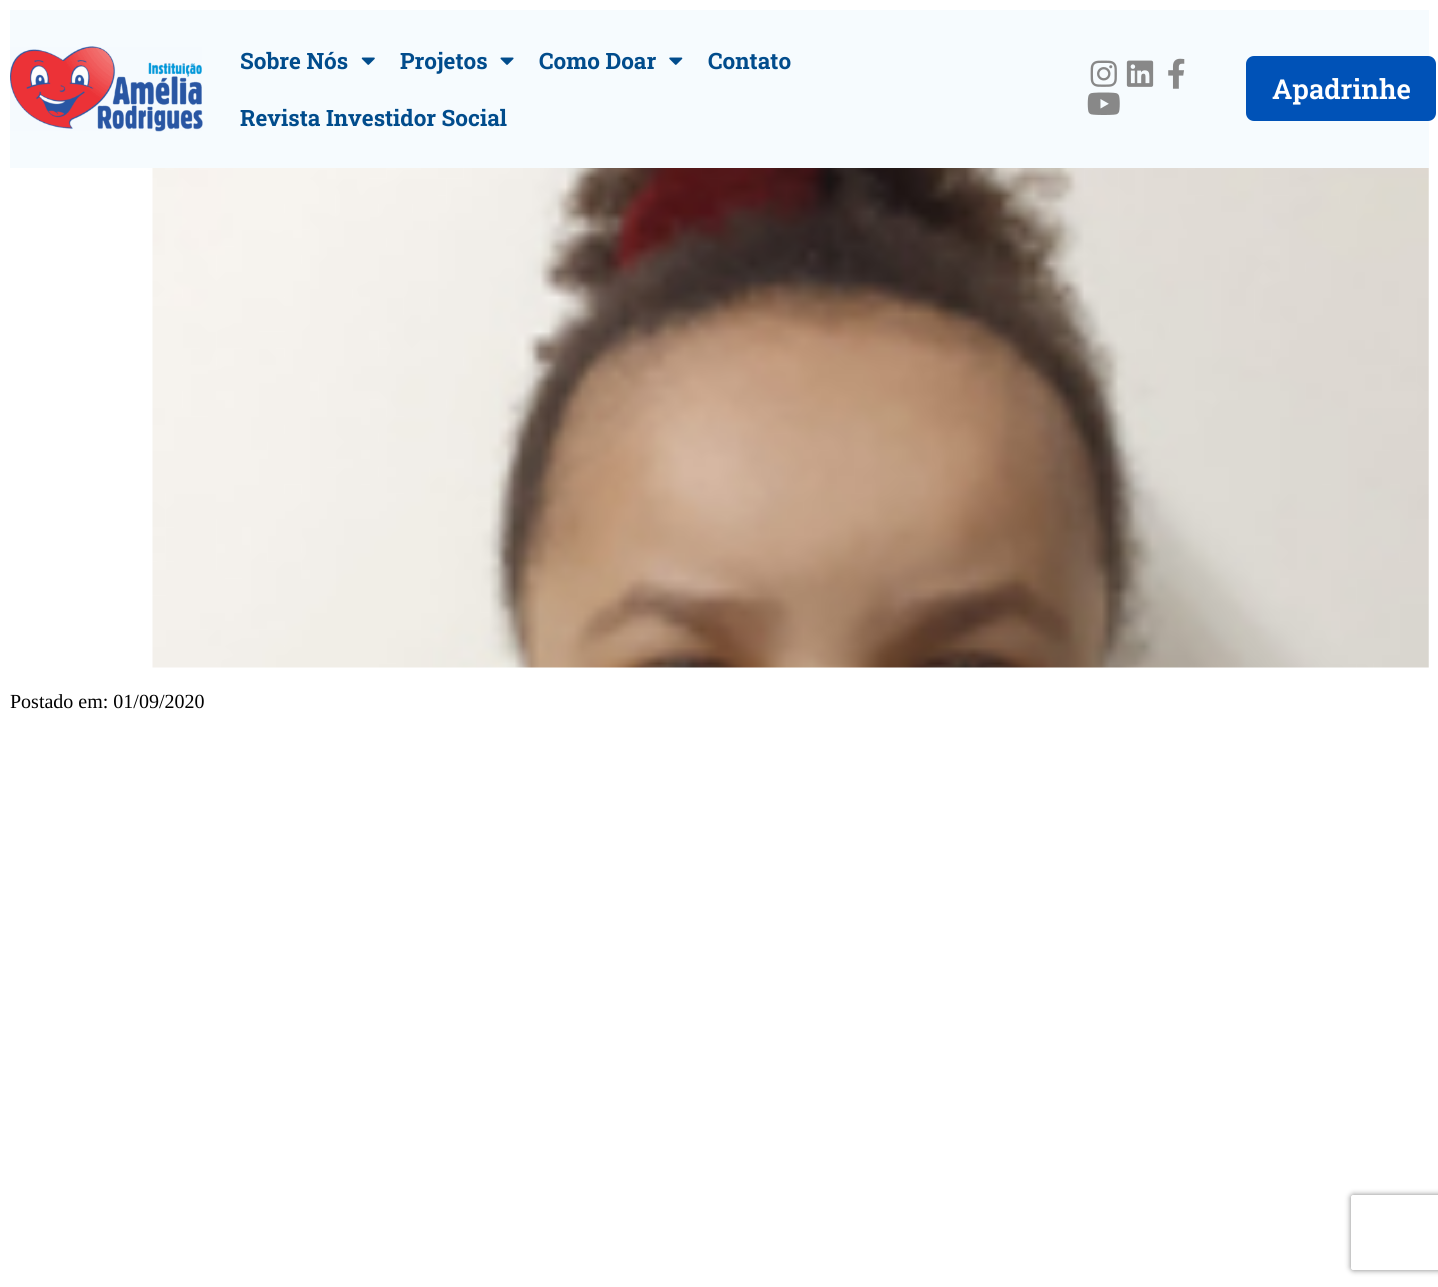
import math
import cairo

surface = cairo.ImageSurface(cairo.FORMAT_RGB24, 1438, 1287)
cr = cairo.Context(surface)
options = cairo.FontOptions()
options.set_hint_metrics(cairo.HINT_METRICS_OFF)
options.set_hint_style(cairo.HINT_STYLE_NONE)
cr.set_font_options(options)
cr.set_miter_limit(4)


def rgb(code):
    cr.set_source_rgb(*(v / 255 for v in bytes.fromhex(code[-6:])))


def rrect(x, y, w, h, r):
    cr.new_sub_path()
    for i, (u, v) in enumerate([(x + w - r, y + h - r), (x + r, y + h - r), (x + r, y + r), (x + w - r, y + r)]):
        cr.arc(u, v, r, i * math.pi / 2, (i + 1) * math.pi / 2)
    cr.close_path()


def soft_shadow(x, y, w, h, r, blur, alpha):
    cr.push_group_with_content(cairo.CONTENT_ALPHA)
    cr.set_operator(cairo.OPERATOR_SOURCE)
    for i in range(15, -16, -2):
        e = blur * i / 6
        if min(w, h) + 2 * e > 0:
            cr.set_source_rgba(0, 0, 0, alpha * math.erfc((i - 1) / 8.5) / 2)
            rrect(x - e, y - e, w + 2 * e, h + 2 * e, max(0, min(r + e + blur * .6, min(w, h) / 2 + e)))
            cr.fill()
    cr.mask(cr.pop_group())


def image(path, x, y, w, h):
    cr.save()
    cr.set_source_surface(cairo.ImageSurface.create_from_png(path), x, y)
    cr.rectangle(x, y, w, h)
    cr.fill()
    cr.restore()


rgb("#ffffff")
cr.paint()
rgb("#f6fbfe")
cr.rectangle(10, 10, 1419, 158)
cr.fill()
image("img/1.png", 10, 46, 193, 86)
image("img/2.png", 361, 57, 14, 8)
image("img/3.png", 500, 57, 14, 8)
image("img/4.png", 669, 57, 14, 8)
image("img/5.png", 1090, 60, 27, 27)
image("img/6.png", 1126, 60, 28, 27)
image("img/7.png", 1168, 58, 17, 31)
image("img/8.png", 1087, 92, 33, 23)
rgb("#0052b7")
rrect(1246, 56, 190, 65, 8)
cr.fill()
image("img/9.png", 152, 168, 1277, 500)
cr.save()
cr.set_fill_rule(cairo.FILL_RULE_EVEN_ODD)
cr.new_path()
cr.move_to(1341, 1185)
cr.line_to(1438, 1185)
cr.line_to(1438, 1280)
cr.line_to(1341, 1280)
cr.close_path()
cr.move_to(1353.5, 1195)
cr.line_to(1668.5, 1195)
cr.curve_to(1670, 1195, 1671, 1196, 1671, 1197.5)
cr.line_to(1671, 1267.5)
cr.curve_to(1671, 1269, 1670, 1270, 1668.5, 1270)
cr.line_to(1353.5, 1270)
cr.curve_to(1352, 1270, 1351, 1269, 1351, 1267.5)
cr.line_to(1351, 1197.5)
cr.curve_to(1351, 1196, 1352, 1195, 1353.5, 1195)
cr.close_path()
cr.clip()
rgb("#808080")
soft_shadow(1351, 1195, 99, 75, 2.5, 3, 1)
cr.restore()
cr.select_font_face("Roboto Slab", cairo.FONT_SLANT_NORMAL, cairo.FONT_WEIGHT_BOLD)
cr.set_font_size(22.5)
rgb("#014c8c")
for x, y, s in [
    (240, 69, "Sobre Nós"),
    (400, 69, "Projetos"),
    (539, 69, "Como Doar"),
    (708, 69, "Contato"),
    (240, 126, "Revista Investidor Social"),
]:
    cr.move_to(x, y)
    cr.show_text(s)
cr.select_font_face("Roboto Slab SemiBold")
cr.set_font_size(27.5)
rgb("#ffffff")
cr.move_to(1272, 99)
cr.show_text("Apadrinhe")
cr.select_font_face("Liberation Serif")
cr.set_font_size(20)
rgb("#000000")
cr.move_to(10, 708)
cr.show_text("Postado em: 01/09/2020")
surface.write_to_png("page.png")
